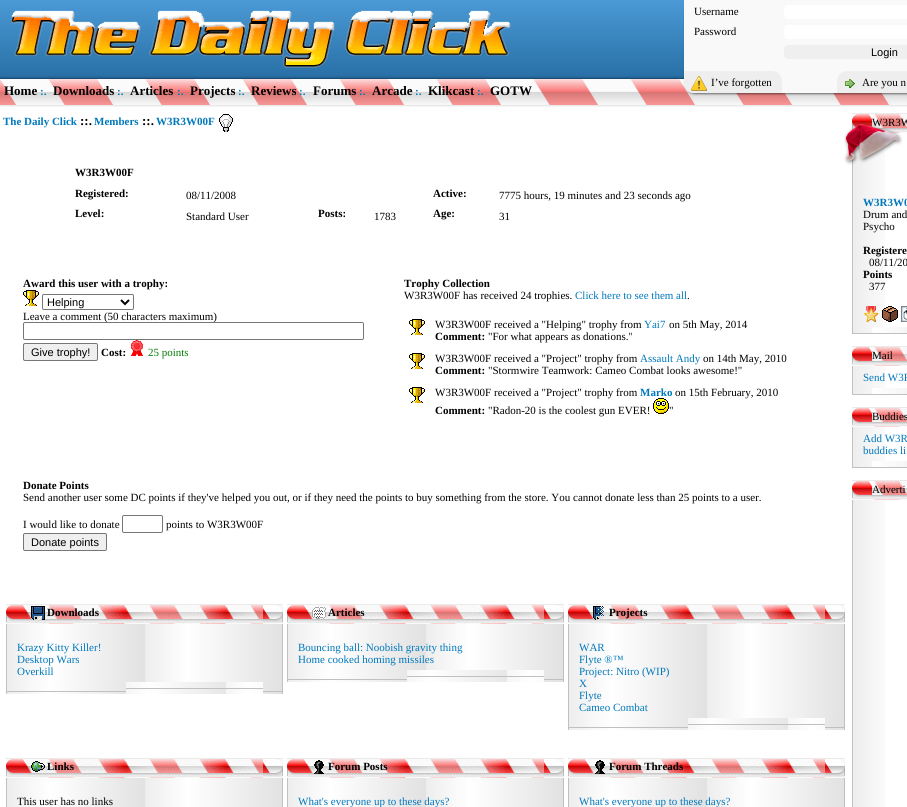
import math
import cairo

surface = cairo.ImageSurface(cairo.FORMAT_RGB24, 907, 807)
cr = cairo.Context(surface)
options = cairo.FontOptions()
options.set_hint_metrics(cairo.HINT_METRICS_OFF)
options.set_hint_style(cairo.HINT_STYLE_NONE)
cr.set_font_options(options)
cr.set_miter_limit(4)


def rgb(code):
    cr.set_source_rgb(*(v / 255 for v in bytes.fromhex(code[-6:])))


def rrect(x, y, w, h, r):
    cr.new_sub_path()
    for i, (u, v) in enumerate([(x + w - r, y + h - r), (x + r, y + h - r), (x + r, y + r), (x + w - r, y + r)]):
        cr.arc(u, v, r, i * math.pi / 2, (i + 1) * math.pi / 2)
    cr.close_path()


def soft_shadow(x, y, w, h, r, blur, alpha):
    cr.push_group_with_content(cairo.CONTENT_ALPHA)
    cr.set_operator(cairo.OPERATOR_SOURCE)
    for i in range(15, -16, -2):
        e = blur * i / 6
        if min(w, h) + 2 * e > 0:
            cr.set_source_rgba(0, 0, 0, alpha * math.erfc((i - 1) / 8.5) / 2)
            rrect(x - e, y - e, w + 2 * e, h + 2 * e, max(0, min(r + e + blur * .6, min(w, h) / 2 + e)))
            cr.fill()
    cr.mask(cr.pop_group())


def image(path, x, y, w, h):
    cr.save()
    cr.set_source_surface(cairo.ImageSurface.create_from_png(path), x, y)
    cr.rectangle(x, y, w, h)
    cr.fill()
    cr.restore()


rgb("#ffffff")
cr.paint()
image("img/1.png", 0, 0, 907, 107)
image("img/2.png", 11, 10, 500, 58)
rgb("#000000")
soft_shadow(685, 1, 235, 93, 10, 1, 0.5)
rgb("#f9f9f9")
cr.new_path()
cr.move_to(684, 0)
cr.line_to(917, 0)
cr.line_to(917, 83)
cr.curve_to(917, 88.5, 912.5, 93, 907, 93)
cr.line_to(694, 93)
cr.curve_to(688.5, 93, 684, 88.5, 684, 83)
cr.close_path()
cr.fill()
rgb("#ffffff")
rrect(784, 5, 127, 14, 4)
cr.fill()
rrect(784, 25, 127, 14, 4)
cr.fill()
rgb("#efefef")
rrect(784, 45, 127, 14, 4)
cr.fill()
rgb("#eeeeee")
cr.new_path()
cr.move_to(684, 71)
cr.line_to(772, 71)
cr.curve_to(777.5, 71, 782, 75.5, 782, 81)
cr.line_to(782, 93)
cr.line_to(694, 93)
cr.curve_to(688.5, 93, 684, 88.5, 684, 83)
cr.close_path()
cr.fill()
image("img/3.png", 691, 76, 16, 15)
cr.new_path()
cr.move_to(847, 71)
cr.line_to(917, 71)
cr.line_to(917, 83)
cr.curve_to(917, 88.5, 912.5, 93, 907, 93)
cr.line_to(837, 93)
cr.line_to(837, 81)
cr.curve_to(837, 75.5, 841.5, 71, 847, 71)
cr.close_path()
cr.fill()
image("img/4.png", 845, 79, 10, 10)
image("img/5.png", 219, 114, 14, 18)
image("img/6.png", 23, 290, 16, 16)
rrect(42.5, 294.5, 91, 15, 1.5)
rgb("#767676")
cr.set_line_width(1)
cr.stroke()
cr.new_path()
cr.move_to(121, 300)
cr.line_to(125, 304)
cr.line_to(129, 300)
rgb("#000000")
cr.set_line_width(2)
cr.stroke()
rgb("#efefef")
rrect(23.5, 343.5, 74, 17, 1.5)
cr.fill_preserve()
rgb("#767676")
cr.set_line_width(1)
cr.stroke()
image("img/7.png", 131, 340, 12, 16)
image("img/6.png", 409, 319, 16, 16)
image("img/6.png", 409, 353, 16, 16)
image("img/6.png", 409, 387, 16, 16)
image("img/8.png", 653, 398, 16, 16)
rrect(122.5, 515.5, 40, 17, 1.5)
cr.stroke()
rgb("#efefef")
rrect(23.5, 533.5, 83, 17, 1.5)
cr.fill_preserve()
rgb("#767676")
cr.stroke()
image("img/9.png", 6, 604, 20, 20)
image("img/10.png", 6, 605, 20, 17)
image("img/11.png", 26, 604, 237, 20)
image("img/12.png", 31, 606, 14, 14)
image("img/9.png", 263, 604, 20, 20)
image("img/13.png", 263, 605, 20, 17)
image("img/14.png", 7, 624, 275, 58)
rgb("#c0c0c0")
cr.rectangle(282, 624, 1, 58)
cr.fill()
cr.rectangle(6, 624, 1, 58)
cr.fill()
image("img/15.png", 6, 682, 20, 12)
image("img/16.png", 7, 688, 19, 4)
image("img/17.png", 26, 682, 237, 12)
image("img/18.png", 26, 688, 100, 4)
image("img/19.png", 263, 682, 20, 12)
image("img/20.png", 263, 688, 19, 4)
image("img/9.png", 287, 604, 20, 20)
image("img/10.png", 287, 605, 20, 17)
image("img/11.png", 307, 604, 237, 20)
image("img/21.png", 312, 607, 14, 12)
image("img/9.png", 544, 604, 20, 20)
image("img/13.png", 544, 605, 20, 17)
image("img/22.png", 288, 624, 275, 46)
cr.rectangle(563, 624, 1, 46)
cr.fill()
cr.rectangle(287, 624, 1, 46)
cr.fill()
image("img/15.png", 287, 670, 20, 12)
image("img/16.png", 288, 676, 19, 4)
image("img/17.png", 307, 670, 237, 12)
image("img/18.png", 307, 676, 100, 4)
image("img/19.png", 544, 670, 20, 12)
image("img/20.png", 544, 676, 19, 4)
image("img/9.png", 568, 604, 20, 20)
image("img/10.png", 568, 605, 20, 17)
image("img/11.png", 588, 604, 237, 20)
image("img/23.png", 593, 606, 11, 14)
image("img/9.png", 825, 604, 20, 20)
image("img/13.png", 825, 605, 20, 17)
image("img/24.png", 569, 624, 275, 94)
cr.rectangle(844, 624, 1, 94)
cr.fill()
cr.rectangle(568, 624, 1, 94)
cr.fill()
image("img/15.png", 568, 718, 20, 12)
image("img/16.png", 569, 724, 19, 4)
image("img/17.png", 588, 718, 237, 12)
image("img/18.png", 588, 724, 100, 4)
image("img/19.png", 825, 718, 20, 12)
image("img/20.png", 825, 724, 19, 4)
image("img/9.png", 6, 758, 20, 20)
image("img/10.png", 6, 759, 20, 17)
image("img/11.png", 26, 758, 237, 20)
image("img/25.png", 31, 761, 14, 11)
image("img/9.png", 263, 758, 20, 20)
image("img/13.png", 263, 759, 20, 17)
image("img/26.png", 7, 778, 275, 29)
cr.rectangle(282, 778, 1, 29)
cr.fill()
cr.rectangle(6, 778, 1, 29)
cr.fill()
image("img/9.png", 287, 758, 20, 20)
image("img/10.png", 287, 759, 20, 17)
image("img/11.png", 307, 758, 237, 20)
image("img/27.png", 314, 760, 10, 14)
image("img/9.png", 544, 758, 20, 20)
image("img/13.png", 544, 759, 20, 17)
image("img/26.png", 288, 778, 275, 29)
cr.rectangle(563, 778, 1, 29)
cr.fill()
cr.rectangle(287, 778, 1, 29)
cr.fill()
image("img/9.png", 568, 758, 20, 20)
image("img/10.png", 568, 759, 20, 17)
image("img/11.png", 588, 758, 237, 20)
image("img/27.png", 595, 760, 10, 14)
image("img/9.png", 825, 758, 20, 20)
image("img/13.png", 825, 759, 20, 17)
image("img/26.png", 569, 778, 275, 29)
cr.rectangle(844, 778, 1, 29)
cr.fill()
cr.rectangle(568, 778, 1, 29)
cr.fill()
image("img/28.png", 852, 113, 55, 20)
image("img/29.png", 852, 114, 20, 16)
image("img/30.png", 853, 145, 32, 182)
cr.rectangle(852, 152, 1, 175)
cr.fill()
image("img/32.png", 864, 306, 15, 16)
image("img/33.png", 882, 306, 16, 16)
image("img/34.png", 901, 306, 6, 16)
image("img/35.png", 852, 327, 55, 7)
image("img/36.png", 852, 327, 20, 6)
image("img/28.png", 852, 346, 55, 20)
image("img/10.png", 852, 347, 20, 17)
image("img/37.png", 853, 366, 32, 22)
cr.rectangle(852, 366, 1, 22)
cr.fill()
image("img/35.png", 852, 388, 55, 7)
image("img/36.png", 852, 388, 20, 6)
image("img/28.png", 852, 407, 55, 20)
image("img/10.png", 852, 408, 20, 17)
image("img/38.png", 853, 427, 32, 34)
cr.rectangle(852, 427, 1, 34)
cr.fill()
image("img/35.png", 852, 461, 55, 7)
image("img/36.png", 852, 461, 20, 6)
image("img/28.png", 852, 480, 55, 20)
image("img/10.png", 852, 481, 20, 17)
image("img/39.png", 853, 500, 32, 307)
cr.rectangle(852, 500, 1, 307)
cr.fill()
cr.select_font_face("Liberation Serif")
cr.set_font_size(11)
rgb("#000000")
cr.move_to(694, 15)
cr.show_text("Username")
cr.move_to(694, 35)
cr.show_text("Password")
cr.select_font_face("Liberation Sans")
cr.move_to(871, 56)
cr.show_text("Login")
cr.select_font_face("Liberation Serif")
cr.move_to(711, 86)
cr.show_text("I’ve forgotten")
cr.move_to(862, 86)
cr.show_text("Are you n")
cr.select_font_face("Liberation Serif", cairo.FONT_SLANT_NORMAL, cairo.FONT_WEIGHT_BOLD)
cr.set_font_size(13)
cr.move_to(4, 95)
cr.show_text("Home")
cr.set_font_size(11)
rgb("#0078bb")
cr.move_to(40, 95)
cr.show_text(":.")
cr.set_font_size(13)
rgb("#000000")
cr.move_to(53, 95)
cr.show_text("Downloads")
cr.set_font_size(11)
rgb("#0078bb")
cr.move_to(117, 95)
cr.show_text(":.")
cr.set_font_size(13)
rgb("#000000")
cr.move_to(130, 95)
cr.show_text("Articles")
cr.set_font_size(11)
rgb("#0078bb")
cr.move_to(177, 95)
cr.show_text(":.")
cr.set_font_size(13)
rgb("#000000")
cr.move_to(190, 95)
cr.show_text("Projects")
cr.set_font_size(11)
rgb("#0078bb")
cr.move_to(238, 95)
cr.show_text(":.")
cr.set_font_size(13)
rgb("#000000")
cr.move_to(251, 95)
cr.show_text("Reviews")
cr.set_font_size(11)
rgb("#0078bb")
cr.move_to(299, 95)
cr.show_text(":.")
cr.set_font_size(13)
rgb("#000000")
cr.move_to(313, 95)
cr.show_text("Forums")
cr.set_font_size(11)
rgb("#0078bb")
cr.move_to(359, 95)
cr.show_text(":.")
cr.set_font_size(13)
rgb("#000000")
cr.move_to(372, 95)
cr.show_text("Arcade")
cr.set_font_size(11)
rgb("#0078bb")
cr.move_to(415, 95)
cr.show_text(":.")
cr.set_font_size(13)
rgb("#000000")
cr.move_to(428, 95)
cr.show_text("Klikcast")
cr.set_font_size(11)
rgb("#0078bb")
cr.move_to(477, 95)
cr.show_text(":.")
cr.set_font_size(13)
rgb("#000000")
cr.move_to(490, 95)
cr.show_text("GOTW")
cr.set_font_size(11)
rgb("#0078bb")
cr.move_to(3, 125)
cr.show_text("The Daily Click")
cr.set_font_size(13)
rgb("#000000")
cr.move_to(80, 125)
cr.show_text("::.")
cr.set_font_size(11)
rgb("#0078bb")
cr.move_to(94, 125)
cr.show_text("Members")
cr.set_font_size(13)
rgb("#000000")
cr.move_to(142, 125)
cr.show_text("::.")
cr.set_font_size(11)
rgb("#0078bb")
cr.move_to(156, 125)
cr.show_text("W3R3W00F")
rgb("#000000")
cr.move_to(75, 176)
cr.show_text("W3R3W00F")
cr.move_to(75, 197)
cr.show_text("Registered:")
cr.select_font_face("Liberation Serif")
cr.move_to(186, 199)
cr.show_text("08/11/2008")
cr.select_font_face("Liberation Serif", cairo.FONT_SLANT_NORMAL, cairo.FONT_WEIGHT_BOLD)
cr.move_to(433, 197)
cr.show_text("Active:")
cr.select_font_face("Liberation Serif")
cr.move_to(499, 199)
cr.show_text("7775 hours, 19 minutes and 23 seconds ago")
cr.select_font_face("Liberation Serif", cairo.FONT_SLANT_NORMAL, cairo.FONT_WEIGHT_BOLD)
cr.move_to(75, 217)
cr.show_text("Level:")
cr.select_font_face("Liberation Serif")
cr.move_to(186, 220)
cr.show_text("Standard User")
cr.select_font_face("Liberation Serif", cairo.FONT_SLANT_NORMAL, cairo.FONT_WEIGHT_BOLD)
cr.move_to(318, 217)
cr.show_text("Posts:")
cr.select_font_face("Liberation Serif")
cr.move_to(374, 220)
cr.show_text("1783")
cr.select_font_face("Liberation Serif", cairo.FONT_SLANT_NORMAL, cairo.FONT_WEIGHT_BOLD)
cr.move_to(433, 217)
cr.show_text("Age:")
cr.select_font_face("Liberation Serif")
cr.move_to(499, 220)
cr.show_text("31")
cr.select_font_face("Liberation Serif", cairo.FONT_SLANT_NORMAL, cairo.FONT_WEIGHT_BOLD)
cr.move_to(23, 287)
cr.show_text("Award this user with a trophy:")
cr.select_font_face("Liberation Sans")
cr.move_to(47, 306)
cr.show_text("Helping")
cr.select_font_face("Liberation Serif")
cr.move_to(23, 320)
cr.show_text("Leave a comment (50 characters maximum)")
rgb("#ffffff")
rrect(23.5, 322.5, 340, 17, 1.5)
cr.fill_preserve()
rgb("#767676")
cr.stroke()
cr.select_font_face("Liberation Sans")
rgb("#000000")
cr.move_to(31, 356)
cr.show_text("Give trophy!")
cr.select_font_face("Liberation Serif", cairo.FONT_SLANT_NORMAL, cairo.FONT_WEIGHT_BOLD)
cr.move_to(101, 356)
cr.show_text("Cost:")
cr.select_font_face("Liberation Serif")
rgb("#008000")
cr.move_to(148, 356)
cr.show_text("25 points")
cr.select_font_face("Liberation Serif", cairo.FONT_SLANT_NORMAL, cairo.FONT_WEIGHT_BOLD)
rgb("#000000")
cr.move_to(404, 287)
cr.show_text("Trophy Collection")
cr.select_font_face("Liberation Serif")
cr.move_to(404, 299)
cr.show_text("W3R3W00F has received 24 trophies.")
rgb("#0078bb")
cr.move_to(575, 299)
cr.show_text("Click here to see them all")
rgb("#000000")
cr.move_to(687, 299)
cr.show_text(".")
cr.move_to(435, 328)
cr.show_text("W3R3W00F received a \"Helping\" trophy from")
rgb("#0078bb")
cr.move_to(644, 328)
cr.show_text("Yai7")
rgb("#000000")
cr.move_to(669, 328)
cr.show_text("on 5th May, 2014")
cr.select_font_face("Liberation Serif", cairo.FONT_SLANT_NORMAL, cairo.FONT_WEIGHT_BOLD)
cr.move_to(435, 340)
cr.show_text("Comment:")
cr.select_font_face("Liberation Serif")
cr.move_to(488, 340)
cr.show_text("\"For what appears as donations.\"")
cr.move_to(435, 362)
cr.show_text("W3R3W00F received a \"Project\" trophy from")
rgb("#0078bb")
cr.move_to(640, 362)
cr.show_text("Assault Andy")
rgb("#000000")
cr.move_to(703, 362)
cr.show_text("on 14th May, 2010")
cr.select_font_face("Liberation Serif", cairo.FONT_SLANT_NORMAL, cairo.FONT_WEIGHT_BOLD)
cr.move_to(435, 374)
cr.show_text("Comment:")
cr.select_font_face("Liberation Serif")
cr.move_to(488, 374)
cr.show_text("\"Stormwire Teamwork: Cameo Combat looks awesome!\"")
cr.move_to(435, 396)
cr.show_text("W3R3W00F received a \"Project\" trophy from")
cr.select_font_face("Liberation Serif", cairo.FONT_SLANT_NORMAL, cairo.FONT_WEIGHT_BOLD)
rgb("#0078bb")
cr.move_to(640, 396)
cr.show_text("Marko")
cr.select_font_face("Liberation Serif")
rgb("#000000")
cr.move_to(675, 396)
cr.show_text("on 15th February, 2010")
cr.select_font_face("Liberation Serif", cairo.FONT_SLANT_NORMAL, cairo.FONT_WEIGHT_BOLD)
cr.move_to(435, 414)
cr.show_text("Comment:")
cr.select_font_face("Liberation Serif")
cr.move_to(488, 414)
cr.show_text("\"Radon-20 is the coolest gun EVER!")
cr.move_to(669, 414)
cr.show_text("\"")
cr.select_font_face("Liberation Serif", cairo.FONT_SLANT_NORMAL, cairo.FONT_WEIGHT_BOLD)
cr.move_to(23, 489)
cr.show_text("Donate Points")
cr.select_font_face("Liberation Serif")
for x, y, s in [
    (23, 501, "Send another user some DC points if they've helped you out, or if they need the points to buy something from the store. You cannot donate less than 25 points to a user."),
    (23, 528, "I would like to donate"),
    (166, 528, "points to W3R3W00F"),
]:
    cr.move_to(x, y)
    cr.show_text(s)
cr.select_font_face("Liberation Sans")
cr.move_to(31, 546)
cr.show_text("Donate points")
cr.select_font_face("Liberation Serif", cairo.FONT_SLANT_NORMAL, cairo.FONT_WEIGHT_BOLD)
cr.move_to(47, 616)
cr.show_text("Downloads")
cr.select_font_face("Liberation Serif")
rgb("#0078bb")
for x, y, s in [
    (17, 651, "Krazy Kitty Killer!"),
    (17, 663, "Desktop Wars"),
    (17, 675, "Overkill"),
]:
    cr.move_to(x, y)
    cr.show_text(s)
cr.select_font_face("Liberation Serif", cairo.FONT_SLANT_NORMAL, cairo.FONT_WEIGHT_BOLD)
rgb("#000000")
cr.move_to(328, 616)
cr.show_text("Articles")
cr.select_font_face("Liberation Serif")
rgb("#0078bb")
cr.move_to(298, 651)
cr.show_text("Bouncing ball: Noobish gravity thing")
cr.move_to(298, 663)
cr.show_text("Home cooked homing missiles")
cr.select_font_face("Liberation Serif", cairo.FONT_SLANT_NORMAL, cairo.FONT_WEIGHT_BOLD)
rgb("#000000")
cr.move_to(609, 616)
cr.show_text("Projects")
cr.select_font_face("Liberation Serif")
rgb("#0078bb")
for x, y, s in [
    (579, 651, "WAR"),
    (579, 663, "Flyte ®™"),
    (579, 675, "Project: Nitro (WIP)"),
    (579, 687, "X"),
    (579, 699, "Flyte"),
    (579, 711, "Cameo Combat"),
]:
    cr.move_to(x, y)
    cr.show_text(s)
cr.select_font_face("Liberation Serif", cairo.FONT_SLANT_NORMAL, cairo.FONT_WEIGHT_BOLD)
rgb("#000000")
cr.move_to(47, 770)
cr.show_text("Links")
cr.select_font_face("Liberation Serif")
cr.move_to(17, 805)
cr.show_text("This user has no links")
cr.select_font_face("Liberation Serif", cairo.FONT_SLANT_NORMAL, cairo.FONT_WEIGHT_BOLD)
cr.move_to(328, 770)
cr.show_text("Forum Posts")
cr.select_font_face("Liberation Serif")
rgb("#0078bb")
cr.move_to(298, 805)
cr.show_text("What's everyone up to these days?")
cr.select_font_face("Liberation Serif", cairo.FONT_SLANT_NORMAL, cairo.FONT_WEIGHT_BOLD)
rgb("#000000")
cr.move_to(609, 770)
cr.show_text("Forum Threads")
cr.select_font_face("Liberation Serif")
rgb("#0078bb")
cr.move_to(579, 805)
cr.show_text("What's everyone up to these days?")
rgb("#000000")
cr.move_to(872, 126)
cr.show_text("W3R3W")
image("img/31.png", 844, 122, 59, 43)
cr.select_font_face("Liberation Serif", cairo.FONT_SLANT_NORMAL, cairo.FONT_WEIGHT_BOLD)
rgb("#0078bb")
cr.move_to(863, 206)
cr.show_text("W3R3W0")
cr.select_font_face("Liberation Serif")
rgb("#000000")
cr.move_to(863, 218)
cr.show_text("Drum and")
cr.move_to(863, 230)
cr.show_text("Psycho")
cr.select_font_face("Liberation Serif", cairo.FONT_SLANT_NORMAL, cairo.FONT_WEIGHT_BOLD)
cr.move_to(863, 254)
cr.show_text("Registere")
cr.select_font_face("Liberation Serif")
cr.move_to(869, 266)
cr.show_text("08/11/20")
cr.select_font_face("Liberation Serif", cairo.FONT_SLANT_NORMAL, cairo.FONT_WEIGHT_BOLD)
cr.move_to(863, 278)
cr.show_text("Points")
cr.select_font_face("Liberation Serif")
cr.move_to(869, 290)
cr.show_text("377")
cr.move_to(872, 359)
cr.show_text("Mail")
rgb("#0078bb")
cr.move_to(863, 381)
cr.show_text("Send W3R")
rgb("#000000")
cr.move_to(872, 420)
cr.show_text("Buddies")
rgb("#0078bb")
cr.move_to(863, 442)
cr.show_text("Add W3R")
cr.move_to(863, 454)
cr.show_text("buddies li")
rgb("#000000")
cr.move_to(872, 493)
cr.show_text("Adverti")
surface.write_to_png("page.png")
